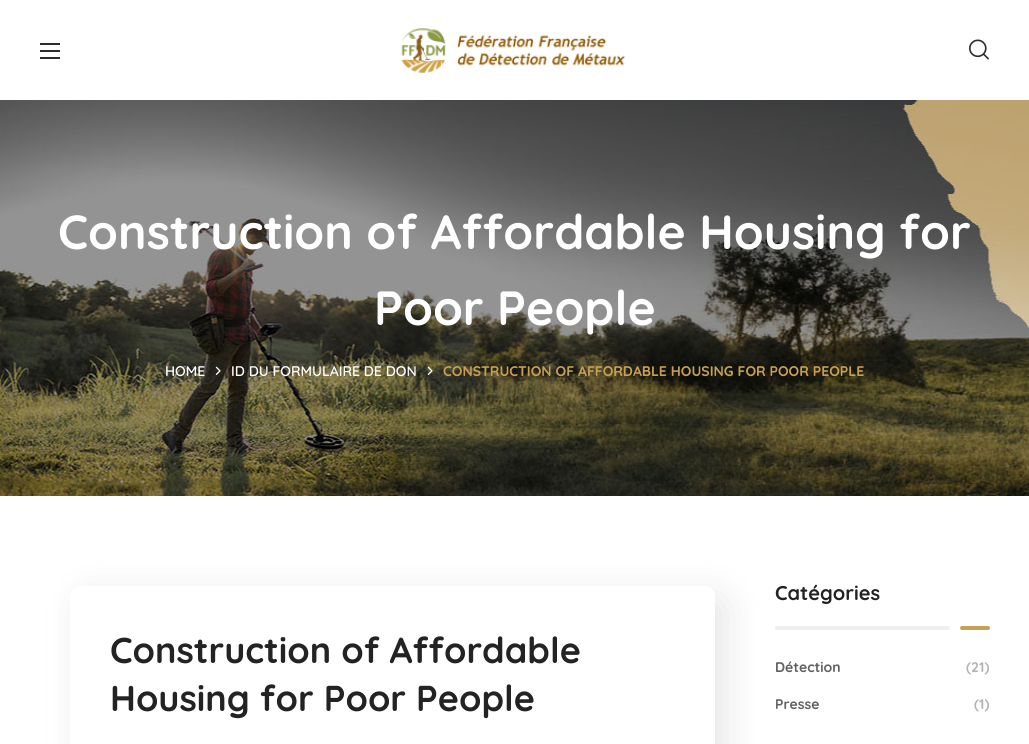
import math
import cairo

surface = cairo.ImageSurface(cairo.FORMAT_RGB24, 1029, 744)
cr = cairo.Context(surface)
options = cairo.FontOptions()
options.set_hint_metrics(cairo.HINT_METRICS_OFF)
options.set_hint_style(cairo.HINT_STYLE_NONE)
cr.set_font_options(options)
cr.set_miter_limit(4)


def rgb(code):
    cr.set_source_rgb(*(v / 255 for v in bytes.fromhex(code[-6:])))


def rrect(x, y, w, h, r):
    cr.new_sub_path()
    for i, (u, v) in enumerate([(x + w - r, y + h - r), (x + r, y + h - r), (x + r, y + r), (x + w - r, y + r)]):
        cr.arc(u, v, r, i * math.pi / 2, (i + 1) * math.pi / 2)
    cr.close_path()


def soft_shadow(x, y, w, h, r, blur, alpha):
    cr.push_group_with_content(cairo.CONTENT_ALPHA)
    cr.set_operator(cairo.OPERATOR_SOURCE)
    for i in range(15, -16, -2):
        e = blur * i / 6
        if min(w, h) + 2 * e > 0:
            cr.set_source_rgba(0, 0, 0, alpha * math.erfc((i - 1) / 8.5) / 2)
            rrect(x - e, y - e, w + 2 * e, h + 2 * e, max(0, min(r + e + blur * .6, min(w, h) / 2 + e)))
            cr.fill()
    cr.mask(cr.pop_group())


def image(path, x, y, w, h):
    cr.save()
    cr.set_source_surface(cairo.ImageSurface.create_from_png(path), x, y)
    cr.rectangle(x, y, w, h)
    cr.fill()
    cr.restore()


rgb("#ffffff")
cr.paint()
for x, y, w, h, color in [
    (40, 43, 20, 2, "#2d2d2d"),
    (40, 50, 20, 2, "#2d2d2d"),
    (40, 57, 20, 2, "#2d2d2d"),
]:
    rgb(color)
    cr.rectangle(x, y, w, h)
    cr.fill()
image("img/1.png", 401, 28, 225, 45)
image("img/2.png", 969, 39, 20, 21)
image("img/3.png", 0, 100, 1029, 396)
image("img/4.png", 215, 366, 6, 9)
image("img/5.png", 427, 366, 6, 9)
rgb("#000000")
soft_shadow(81, 596, 645, 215, 10, 19, 0.1)
rgb("#ffffff")
rrect(70, 586, 645, 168, 10)
cr.fill()
rgb("#eeeeee")
rrect(775, 626, 175, 4, 2)
cr.fill()
rgb("#c8a053")
rrect(960, 626, 30, 4, 2)
cr.fill()
cr.select_font_face("Quicksand", cairo.FONT_SLANT_NORMAL, cairo.FONT_WEIGHT_BOLD)
cr.set_font_size(48)
rgb("#ffffff")
cr.move_to(58, 249)
cr.show_text("Construction of Affordable Housing for")
cr.move_to(374, 325)
cr.show_text("Poor People")
cr.select_font_face("Quicksand SemiBold")
cr.set_font_size(14)
cr.move_to(165, 376)
cr.show_text("HOME")
cr.move_to(231, 376)
cr.show_text("ID DU FORMULAIRE DE DON")
cr.select_font_face("Quicksand", cairo.FONT_SLANT_NORMAL, cairo.FONT_WEIGHT_BOLD)
rgb("#c8a053")
cr.move_to(443, 376)
cr.show_text("CONSTRUCTION OF AFFORDABLE HOUSING FOR POOR PEOPLE")
cr.set_font_size(36)
rgb("#232323")
cr.move_to(110, 663)
cr.show_text("Construction of Affordable")
cr.move_to(110, 711)
cr.show_text("Housing for Poor People")
cr.set_font_size(20)
cr.move_to(775, 600)
cr.show_text("Catégories")
cr.set_font_size(14)
rgb("#616161")
cr.move_to(775, 672)
cr.show_text("Détection")
rgb("#b4b4b4")
cr.move_to(966, 672)
cr.show_text("(21)")
rgb("#616161")
cr.move_to(775, 709)
cr.show_text("Presse")
rgb("#b4b4b4")
cr.move_to(974, 709)
cr.show_text("(1)")
surface.write_to_png("page.png")
